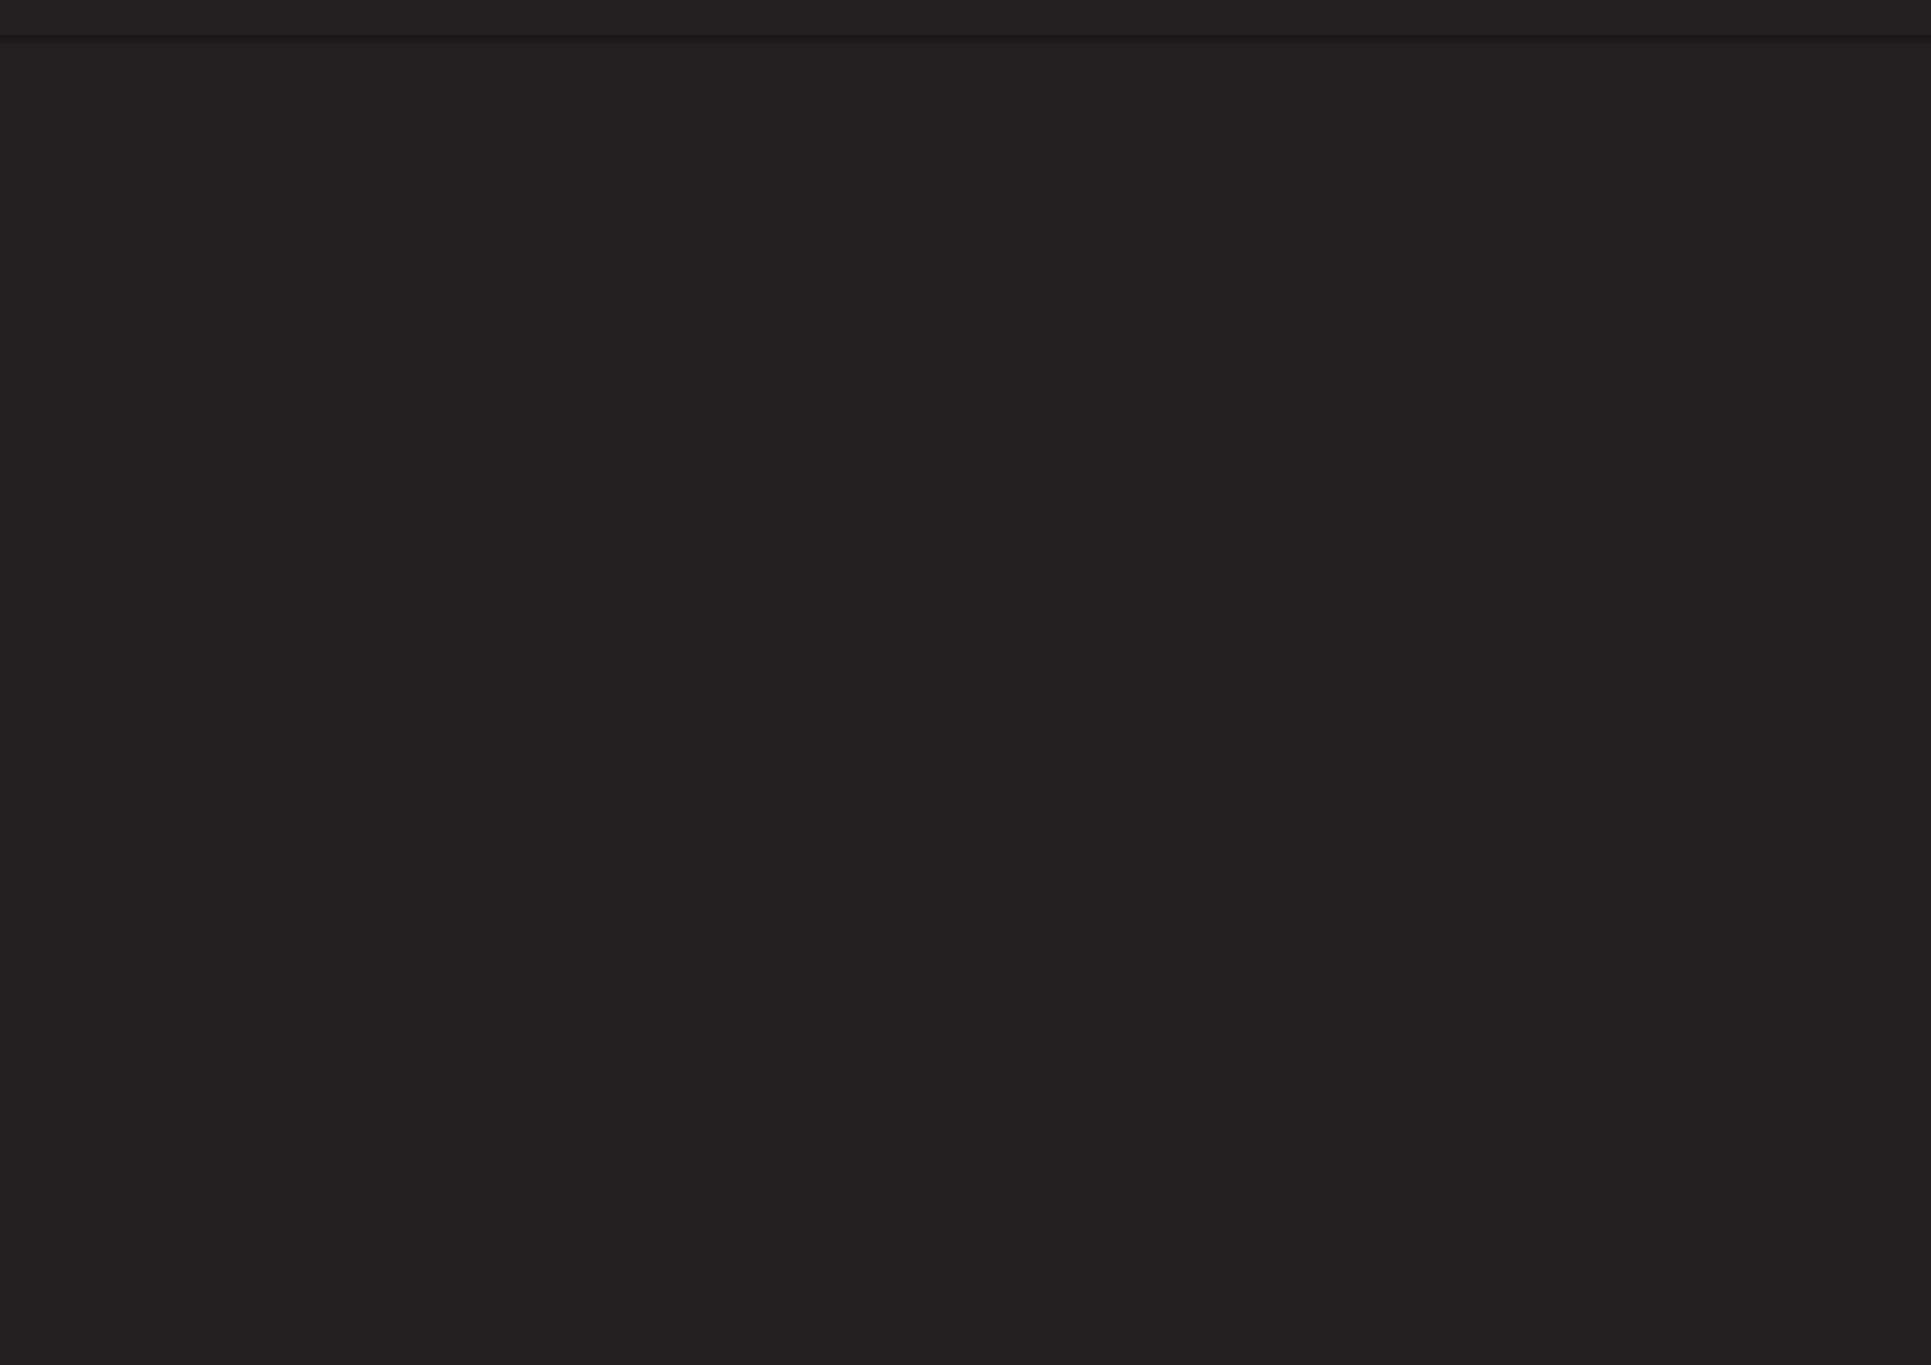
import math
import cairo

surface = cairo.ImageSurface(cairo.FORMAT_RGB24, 1931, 1365)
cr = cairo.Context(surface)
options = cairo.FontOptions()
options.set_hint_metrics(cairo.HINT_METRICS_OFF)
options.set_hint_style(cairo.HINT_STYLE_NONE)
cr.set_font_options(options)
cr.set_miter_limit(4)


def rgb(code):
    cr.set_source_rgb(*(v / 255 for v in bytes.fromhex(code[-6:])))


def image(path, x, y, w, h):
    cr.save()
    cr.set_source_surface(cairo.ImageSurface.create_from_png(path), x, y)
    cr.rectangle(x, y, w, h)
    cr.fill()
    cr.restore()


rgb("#242021")
cr.paint()
image("img/1.png", 0, 35, 1931, 9)
surface.write_to_png("page.png")
